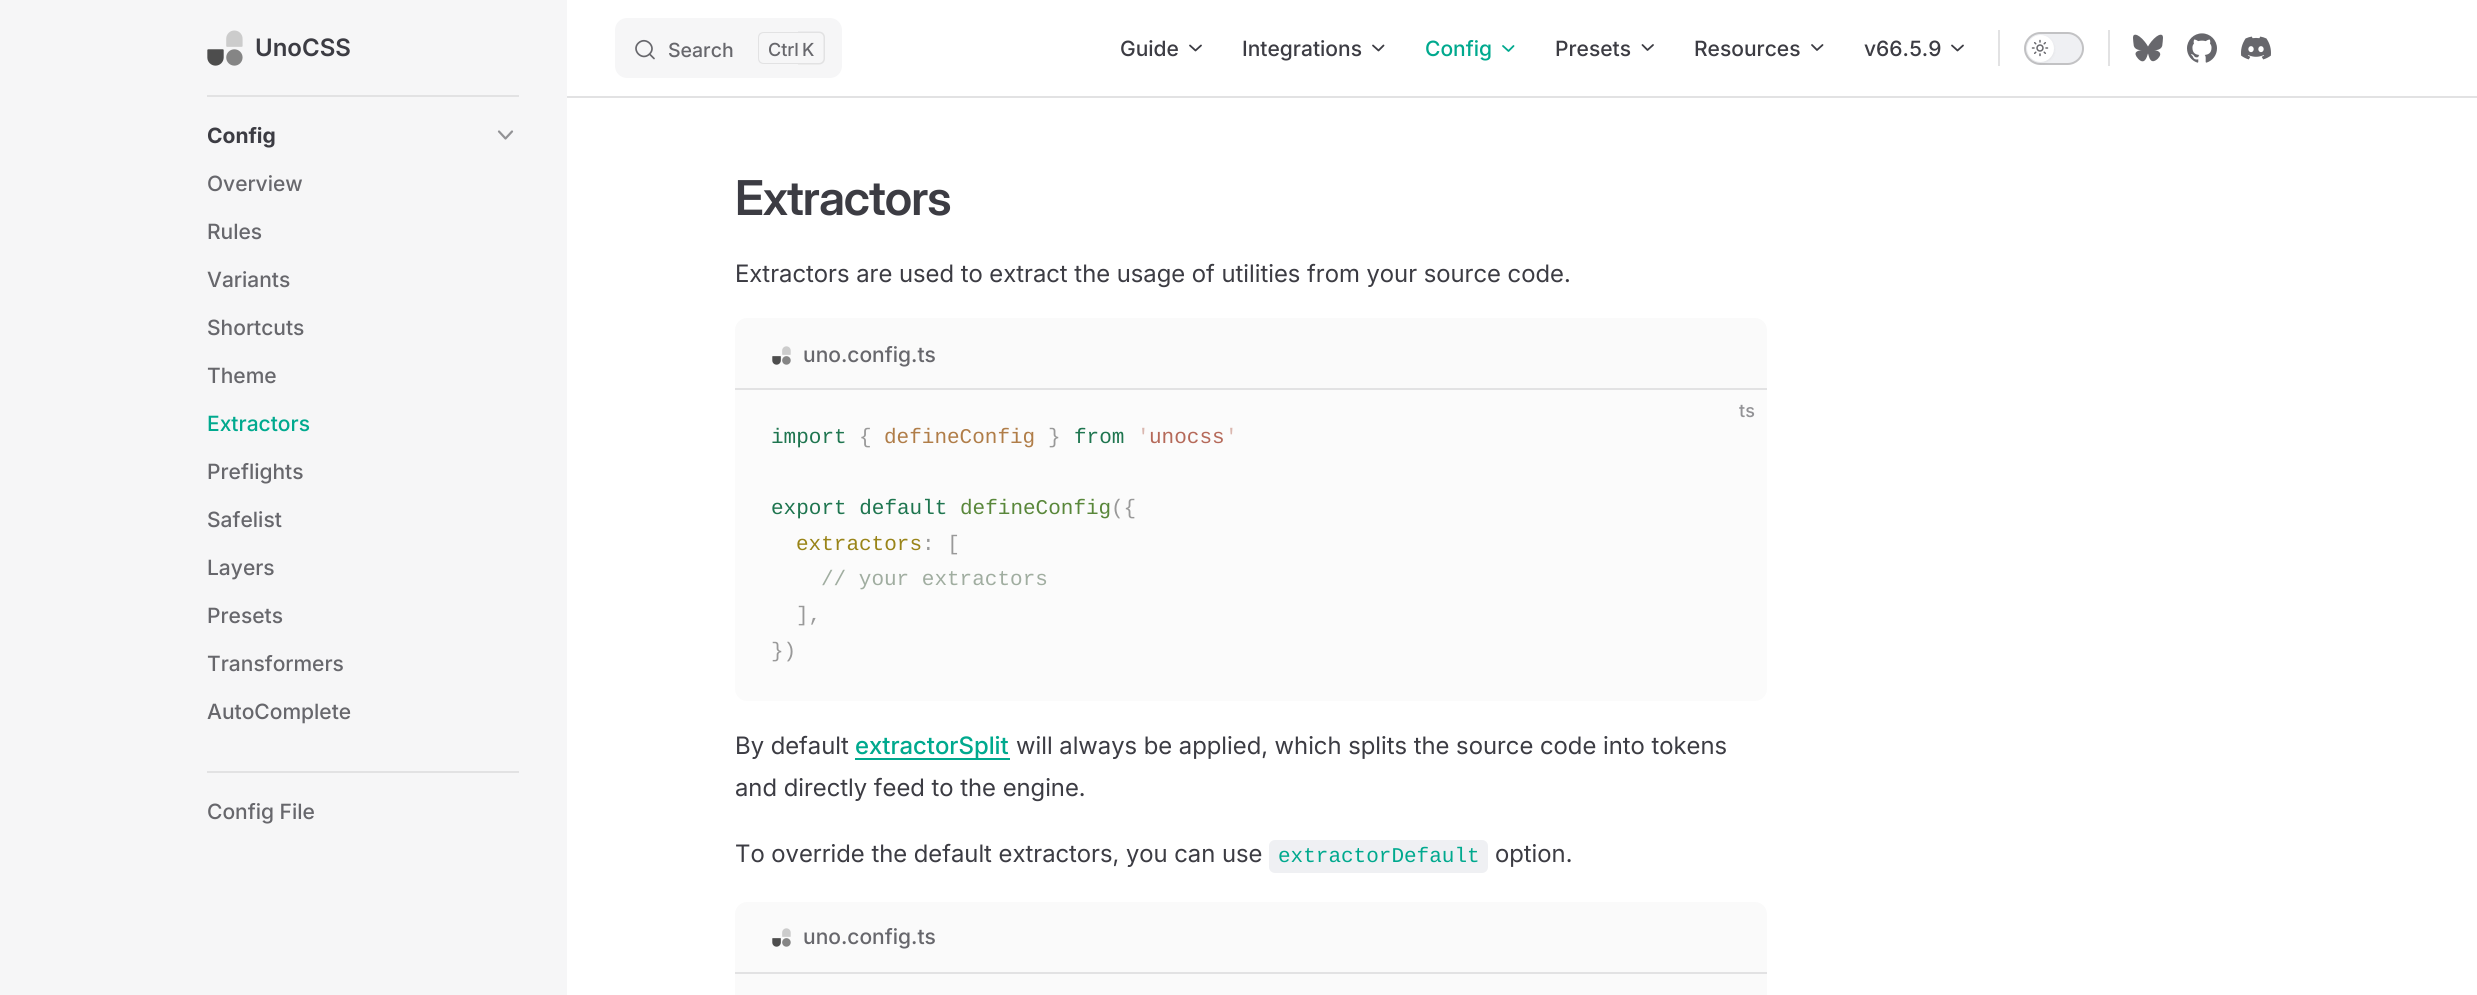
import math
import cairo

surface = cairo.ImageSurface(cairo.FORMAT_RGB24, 2477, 995)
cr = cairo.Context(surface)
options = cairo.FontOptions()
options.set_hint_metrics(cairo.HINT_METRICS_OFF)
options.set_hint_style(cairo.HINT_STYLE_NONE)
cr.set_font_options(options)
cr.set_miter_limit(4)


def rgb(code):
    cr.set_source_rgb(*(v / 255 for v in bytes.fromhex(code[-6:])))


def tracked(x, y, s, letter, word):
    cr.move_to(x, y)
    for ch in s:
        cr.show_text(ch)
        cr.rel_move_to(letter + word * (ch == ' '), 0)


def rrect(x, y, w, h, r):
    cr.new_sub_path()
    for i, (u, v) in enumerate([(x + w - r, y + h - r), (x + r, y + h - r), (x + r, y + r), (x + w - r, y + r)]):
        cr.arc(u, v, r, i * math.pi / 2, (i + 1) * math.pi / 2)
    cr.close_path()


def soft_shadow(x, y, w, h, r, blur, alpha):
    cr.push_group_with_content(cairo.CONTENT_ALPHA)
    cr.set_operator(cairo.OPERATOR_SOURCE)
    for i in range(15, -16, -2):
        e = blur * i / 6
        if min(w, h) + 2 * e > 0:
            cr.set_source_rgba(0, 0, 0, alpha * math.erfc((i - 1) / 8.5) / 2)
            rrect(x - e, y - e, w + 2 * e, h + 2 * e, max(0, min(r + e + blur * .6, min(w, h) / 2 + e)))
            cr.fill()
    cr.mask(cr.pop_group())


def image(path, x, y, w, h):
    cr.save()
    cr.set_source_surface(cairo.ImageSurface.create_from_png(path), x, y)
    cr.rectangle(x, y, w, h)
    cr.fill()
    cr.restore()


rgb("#ffffff")
cr.paint()
rgb("#f6f6f7")
cr.rectangle(0, 0, 567, 995)
cr.fill()
rgb("#e2e2e3")
cr.rectangle(207, 95, 312, 2)
cr.fill()
image("img/1.png", 207, 30, 36, 36)
rgb("#f6f6f7")
rrect(615, 18, 227, 60, 12)
cr.fill()
cr.new_path()
cr.move_to(649.5, 54)
cr.line_to(654, 58.5)
cr.line_to(649.5, 54)
cr.curve_to(642, 61.5, 631, 50, 638.5, 43)
cr.curve_to(646, 36, 657, 47, 649.5, 54)
cr.close_path()
rgb("#67676c")
cr.set_line_width(1.7)
cr.set_line_cap(cairo.LINE_CAP_ROUND)
cr.set_line_join(cairo.LINE_JOIN_ROUND)
cr.stroke()
rgb("#e2e2e3")
cr.set_fill_rule(cairo.FILL_RULE_EVEN_ODD)
cr.new_path()
cr.move_to(764, 32)
cr.line_to(798, 32)
cr.line_to(798, 64)
cr.line_to(764, 64)
cr.curve_to(760, 64, 758, 62, 758, 58)
cr.line_to(758, 38)
cr.curve_to(758, 34, 760, 32, 764, 32)
cr.close_path()
cr.move_to(764, 33)
cr.line_to(798, 33)
cr.line_to(798, 63)
cr.line_to(764, 63)
cr.curve_to(761, 63, 759, 61, 759, 58)
cr.line_to(759, 38)
cr.curve_to(759, 35, 761, 33, 764, 33)
cr.close_path()
cr.fill()
cr.new_path()
cr.move_to(798, 31.5)
cr.line_to(819, 31.5)
cr.curve_to(822.5, 31.5, 825, 34, 825, 37.5)
cr.line_to(825, 58.5)
cr.curve_to(825, 62, 822.5, 64.5, 819, 64.5)
cr.line_to(798, 64.5)
cr.close_path()
cr.move_to(798, 33)
cr.line_to(819, 33)
cr.curve_to(821.5, 33, 823.5, 35, 823.5, 37.5)
cr.line_to(823.5, 58.5)
cr.curve_to(823.5, 61, 821.5, 63, 819, 63)
cr.line_to(798, 63)
cr.close_path()
cr.fill()
cr.new_path()
cr.move_to(1190, 45.5)
cr.line_to(1195.5, 50.5)
cr.line_to(1201, 45.5)
rgb("#3c3c43")
cr.set_line_width(1.8)
cr.stroke()
cr.new_path()
cr.move_to(1373, 45.5)
cr.line_to(1378.5, 50.5)
cr.line_to(1383.5, 45.5)
cr.stroke()
cr.new_path()
cr.move_to(1503, 46)
cr.line_to(1508.5, 51)
cr.line_to(1513.5, 46)
rgb("#00a98e")
cr.stroke()
cr.new_path()
cr.move_to(1642.5, 45)
cr.line_to(1647.5, 50)
cr.line_to(1653, 45)
rgb("#3c3c43")
cr.stroke()
cr.new_path()
cr.move_to(1812, 45)
cr.line_to(1817, 50)
cr.line_to(1822.5, 45)
cr.stroke()
cr.new_path()
cr.move_to(1952, 45.5)
cr.line_to(1957.5, 50.5)
cr.line_to(1963, 45.5)
cr.stroke()
rgb("#e2e2e3")
cr.rectangle(1998, 30, 2, 36)
cr.fill()
rgb("#eff0f3")
rrect(2025, 33, 58, 31, 15.5)
cr.fill_preserve()
rgb("#c2c2c4")
cr.set_line_width(2)
cr.set_line_cap(cairo.LINE_CAP_BUTT)
cr.set_line_join(cairo.LINE_JOIN_MITER)
cr.stroke()
rgb("#000000")
soft_shadow(2027, 36, 27, 27, 13.5, 1.5, 0.06)
rgb("#ffffff")
cr.arc(2040.5, 48.5, 13.5, 0, 2 * math.pi)
cr.fill()
image("img/2.png", 2031, 39, 18, 18)
rgb("#e2e2e3")
cr.rectangle(2108, 30, 2, 36)
cr.fill()
image("img/3.png", 2133, 34, 30, 28)
image("img/4.png", 2187, 33, 30, 30)
image("img/5.png", 2241, 36, 30, 24)
cr.rectangle(567, 96, 1910, 2)
cr.fill()
cr.new_path()
cr.move_to(499, 131.5)
cr.line_to(505.5, 138.5)
cr.line_to(512, 131.5)
rgb("#929295")
cr.set_line_width(2.2)
cr.set_line_cap(cairo.LINE_CAP_ROUND)
cr.set_line_join(cairo.LINE_JOIN_ROUND)
cr.stroke()
rgb("#e2e2e3")
cr.rectangle(207, 771, 312, 2)
cr.fill()
rgb("#fafafa")
cr.new_path()
cr.move_to(747, 318)
cr.line_to(1755, 318)
cr.curve_to(1761.5, 318, 1767, 323.5, 1767, 330)
cr.line_to(1767, 390)
cr.line_to(735, 390)
cr.line_to(735, 330)
cr.curve_to(735, 323.5, 740.5, 318, 747, 318)
cr.close_path()
cr.fill()
rgb("#e2e2e3")
cr.rectangle(735, 388, 1032, 2)
cr.fill()
image("img/6.png", 772, 346, 19, 19)
rgb("#fbfbfb")
cr.new_path()
cr.move_to(735, 390)
cr.line_to(1767, 390)
cr.line_to(1767, 689)
cr.curve_to(1767, 695.5, 1761.5, 701, 1755, 701)
cr.line_to(747, 701)
cr.curve_to(740.5, 701, 735, 695.5, 735, 689)
cr.close_path()
cr.fill()
rgb("#00a98e")
cr.rectangle(855, 758, 155, 2)
cr.fill()
rgb("#eff0f3")
rrect(1269, 840, 219, 33, 6)
cr.fill()
rgb("#fafafa")
cr.new_path()
cr.move_to(747, 902)
cr.line_to(1755, 902)
cr.curve_to(1761.5, 902, 1767, 907.5, 1767, 914)
cr.line_to(1767, 974)
cr.line_to(735, 974)
cr.line_to(735, 914)
cr.curve_to(735, 907.5, 740.5, 902, 747, 902)
cr.close_path()
cr.fill()
rgb("#e2e2e3")
cr.rectangle(735, 972, 1032, 2)
cr.fill()
image("img/6.png", 772, 928, 19, 19)
rgb("#fafafa")
cr.rectangle(735, 974, 1032, 21)
cr.fill()
cr.select_font_face("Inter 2 SemiBold")
cr.set_font_size(24)
rgb("#3c3c43")
cr.move_to(255, 56)
cr.show_text("UnoCSS")
cr.select_font_face("Inter 2 Medium")
cr.set_font_size(19.5)
rgb("#67676c")
cr.move_to(668, 57)
cr.show_text("Search")
cr.set_font_size(18)
cr.move_to(768, 56)
cr.show_text("Ctrl")
cr.move_to(802, 56)
cr.show_text("K")
cr.set_font_size(21)
rgb("#3c3c43")
cr.move_to(1120, 56)
cr.show_text("Guide")
cr.move_to(1242, 56)
cr.show_text("Integrations")
rgb("#00a98e")
cr.move_to(1425, 56)
cr.show_text("Config")
rgb("#3c3c43")
for x, y, s in [
    (1555, 56, "Presets"),
    (1694, 56, "Resources"),
    (1864, 56, "v66.5.9"),
]:
    cr.move_to(x, y)
    cr.show_text(s)
cr.select_font_face("Inter", cairo.FONT_SLANT_NORMAL, cairo.FONT_WEIGHT_BOLD)
cr.move_to(207, 143)
cr.show_text("Config")
cr.select_font_face("Inter 2 Medium")
rgb("#67676c")
for x, y, s in [
    (207, 191, "Overview"),
    (207, 239, "Rules"),
    (207, 287, "Variants"),
    (207, 335, "Shortcuts"),
    (207, 383, "Theme"),
]:
    cr.move_to(x, y)
    cr.show_text(s)
rgb("#00a98e")
cr.move_to(207, 431)
cr.show_text("Extractors")
rgb("#67676c")
for x, y, s in [
    (207, 479, "Preflights"),
    (207, 527, "Safelist"),
    (207, 575, "Layers"),
    (207, 623, "Presets"),
    (207, 671, "Transformers"),
    (207, 719, "AutoComplete"),
    (207, 819, "Config File"),
]:
    cr.move_to(x, y)
    cr.show_text(s)
cr.select_font_face("Inter SemiBold")
cr.set_font_size(48)
rgb("#3c3c43")
tracked(735, 215, "Extractors", -1, 0)
cr.select_font_face("Inter")
cr.set_font_size(24)
cr.move_to(735, 282)
cr.show_text("Extractors are used to extract the usage of utilities from your source code.")
cr.select_font_face("Inter 2 Medium")
cr.set_font_size(21)
rgb("#67676c")
cr.move_to(803, 362)
cr.show_text("uno.config.ts")
cr.set_font_size(18)
rgb("#929295")
cr.move_to(1739, 417)
cr.show_text("ts")
cr.select_font_face("Liberation Mono")
cr.set_font_size(21)
rgb("#1e754f")
cr.move_to(771, 443)
cr.show_text("import")
rgb("#999999")
cr.move_to(859, 443)
cr.show_text("{")
rgb("#b07d48")
cr.move_to(884, 443)
cr.show_text("defineConfig")
rgb("#999999")
cr.move_to(1048, 443)
cr.show_text("}")
rgb("#1e754f")
cr.move_to(1074, 443)
cr.show_text("from")
rgb("#dab7af")
cr.move_to(1137, 443)
cr.show_text("'")
rgb("#b56959")
cr.move_to(1149, 443)
cr.show_text("unocss")
rgb("#dab7af")
cr.move_to(1225, 443)
cr.show_text("'")
rgb("#1e754f")
cr.move_to(771, 514)
cr.show_text("export default")
rgb("#59873a")
cr.move_to(960, 514)
cr.show_text("defineConfig")
rgb("#999999")
cr.move_to(1111, 514)
cr.show_text("({")
rgb("#998418")
cr.move_to(796, 550)
cr.show_text("extractors")
rgb("#999999")
cr.move_to(922, 550)
cr.show_text(": [")
rgb("#a0ada0")
cr.move_to(821, 585)
cr.show_text("// your extractors")
rgb("#999999")
cr.move_to(796, 621)
cr.show_text("],")
cr.move_to(771, 657)
cr.show_text("})")
cr.select_font_face("Inter")
cr.set_font_size(24)
rgb("#3c3c43")
cr.move_to(735, 754)
cr.show_text("By default")
cr.select_font_face("Inter Medium")
rgb("#00a98e")
cr.move_to(855, 754)
cr.show_text("extractorSplit")
cr.select_font_face("Inter")
rgb("#3c3c43")
for x, y, s in [
    (1016, 754, "will always be applied, which splits the source code into tokens"),
    (735, 796, "and directly feed to the engine."),
    (735, 862, "To override the default extractors, you can use"),
]:
    cr.move_to(x, y)
    cr.show_text(s)
cr.select_font_face("Liberation Mono")
cr.set_font_size(21)
rgb("#00a98e")
cr.move_to(1278, 862)
cr.show_text("extractorDefault")
cr.select_font_face("Inter")
cr.set_font_size(24)
rgb("#3c3c43")
cr.move_to(1495, 862)
cr.show_text("option.")
cr.select_font_face("Inter 2 Medium")
cr.set_font_size(21)
rgb("#67676c")
cr.move_to(803, 944)
cr.show_text("uno.config.ts")
surface.write_to_png("page.png")
